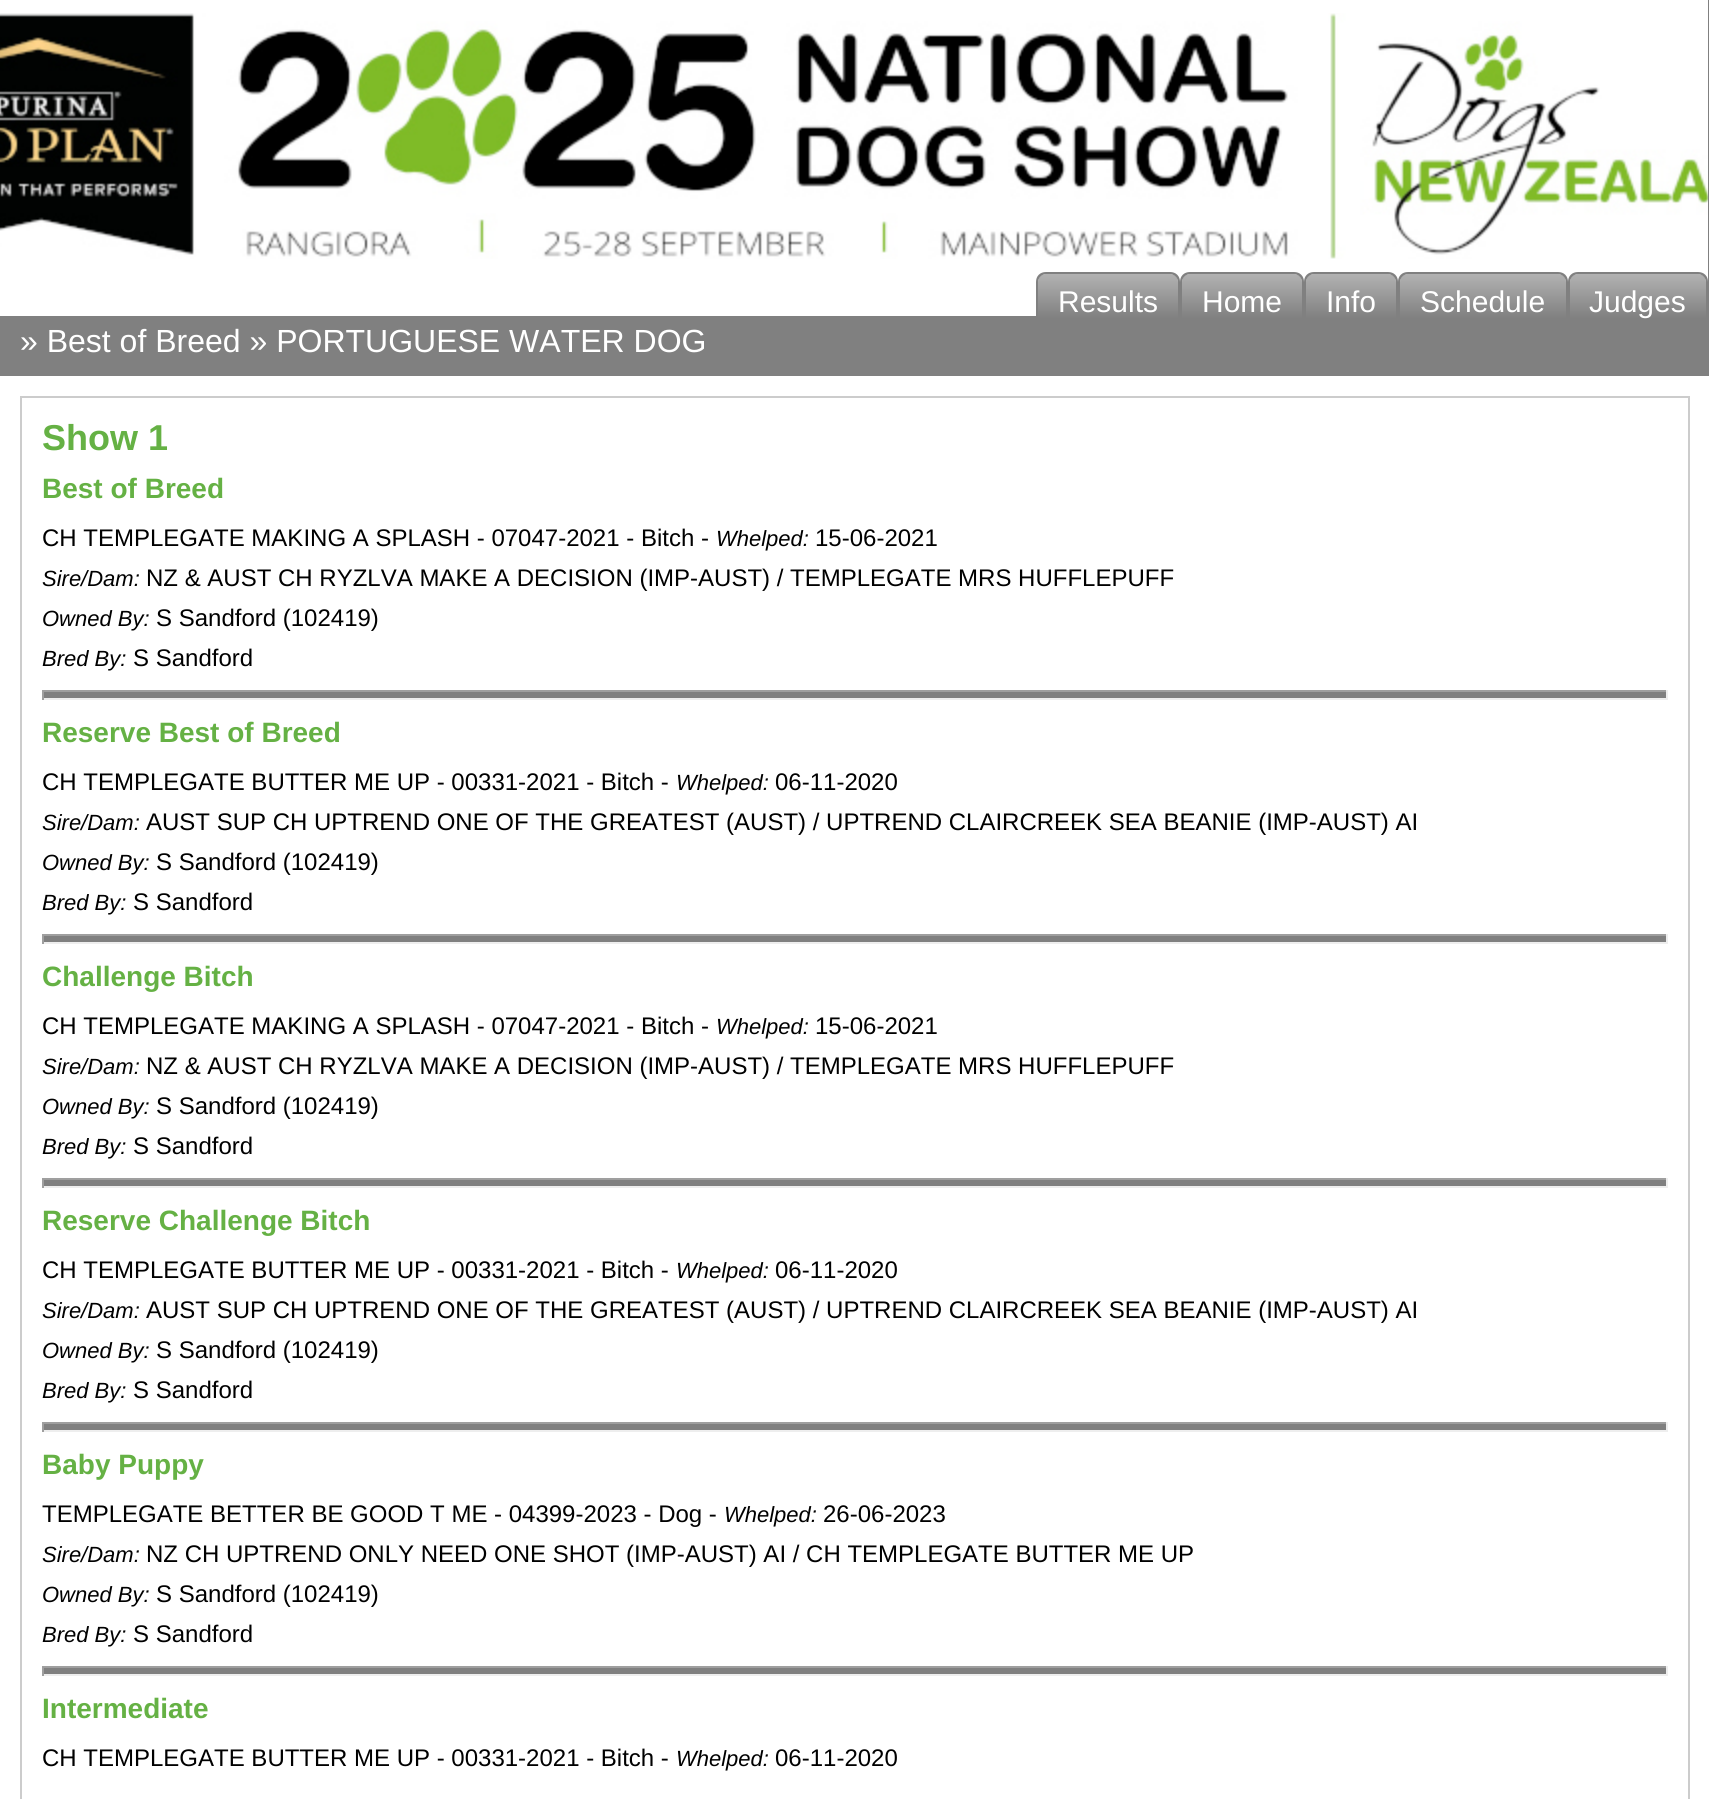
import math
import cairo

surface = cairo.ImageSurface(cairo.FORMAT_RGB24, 1709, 1799)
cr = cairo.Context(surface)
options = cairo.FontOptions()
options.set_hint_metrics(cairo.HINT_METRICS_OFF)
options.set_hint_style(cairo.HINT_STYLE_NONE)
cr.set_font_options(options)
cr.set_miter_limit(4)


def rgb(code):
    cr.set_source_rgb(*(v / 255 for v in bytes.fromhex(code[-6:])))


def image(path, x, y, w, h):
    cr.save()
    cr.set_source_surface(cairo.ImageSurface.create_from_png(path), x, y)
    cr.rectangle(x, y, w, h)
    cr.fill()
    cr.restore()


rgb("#ffffff")
cr.paint()
image("img/1.png", 0, 13, 1708, 246)
rgb("#808080")
cr.rectangle(1708, 0, 1, 324)
cr.fill()
cr.rectangle(0, 316, 1709, 60)
cr.fill()
gradient = cairo.LinearGradient(1108, 318, 1108, 274)
gradient.add_color_stop_rgba(0, 0.502, 0.502, 0.502, 1)
gradient.add_color_stop_rgba(1, 0.698, 0.698, 0.698, 1)
cr.set_source(gradient)
cr.new_path()
cr.move_to(1046, 274)
cr.line_to(1170, 274)
cr.curve_to(1174.5, 274, 1178, 277.5, 1178, 282)
cr.line_to(1178, 318)
cr.line_to(1038, 318)
cr.line_to(1038, 282)
cr.curve_to(1038, 277.5, 1041.5, 274, 1046, 274)
cr.close_path()
cr.fill()
rgb("#808080")
cr.set_fill_rule(cairo.FILL_RULE_EVEN_ODD)
cr.new_path()
cr.move_to(1046, 272)
cr.line_to(1170, 272)
cr.curve_to(1176, 272, 1180, 276, 1180, 282)
cr.line_to(1180, 318)
cr.line_to(1036, 318)
cr.line_to(1036, 282)
cr.curve_to(1036, 276, 1040, 272, 1046, 272)
cr.close_path()
cr.move_to(1046, 274)
cr.line_to(1170, 274)
cr.curve_to(1174, 274, 1178, 278, 1178, 282)
cr.line_to(1178, 318)
cr.line_to(1038, 318)
cr.line_to(1038, 282)
cr.curve_to(1038, 278, 1042, 274, 1046, 274)
cr.close_path()
cr.fill()
gradient = cairo.LinearGradient(1242, 318, 1242, 274)
gradient.add_color_stop_rgba(0, 0.502, 0.502, 0.502, 1)
gradient.add_color_stop_rgba(1, 0.698, 0.698, 0.698, 1)
cr.set_source(gradient)
cr.new_path()
cr.move_to(1190, 274)
cr.line_to(1294, 274)
cr.curve_to(1298.5, 274, 1302, 277.5, 1302, 282)
cr.line_to(1302, 318)
cr.line_to(1182, 318)
cr.line_to(1182, 282)
cr.curve_to(1182, 277.5, 1185.5, 274, 1190, 274)
cr.close_path()
cr.fill()
rgb("#808080")
cr.new_path()
cr.move_to(1190, 272)
cr.line_to(1294, 272)
cr.curve_to(1300, 272, 1304, 276, 1304, 282)
cr.line_to(1304, 318)
cr.line_to(1180, 318)
cr.line_to(1180, 282)
cr.curve_to(1180, 276, 1184, 272, 1190, 272)
cr.close_path()
cr.move_to(1190, 274)
cr.line_to(1294, 274)
cr.curve_to(1298, 274, 1302, 278, 1302, 282)
cr.line_to(1302, 318)
cr.line_to(1182, 318)
cr.line_to(1182, 282)
cr.curve_to(1182, 278, 1186, 274, 1190, 274)
cr.close_path()
cr.fill()
gradient = cairo.LinearGradient(1351, 318, 1351, 274)
gradient.add_color_stop_rgba(0, 0.502, 0.502, 0.502, 1)
gradient.add_color_stop_rgba(1, 0.698, 0.698, 0.698, 1)
cr.set_source(gradient)
cr.new_path()
cr.move_to(1314, 274)
cr.line_to(1388, 274)
cr.curve_to(1392.5, 274, 1396, 277.5, 1396, 282)
cr.line_to(1396, 318)
cr.line_to(1306, 318)
cr.line_to(1306, 282)
cr.curve_to(1306, 277.5, 1309.5, 274, 1314, 274)
cr.close_path()
cr.fill()
rgb("#808080")
cr.new_path()
cr.move_to(1314, 272)
cr.line_to(1388, 272)
cr.curve_to(1394, 272, 1398, 276, 1398, 282)
cr.line_to(1398, 318)
cr.line_to(1304, 318)
cr.line_to(1304, 282)
cr.curve_to(1304, 276, 1308, 272, 1314, 272)
cr.close_path()
cr.move_to(1314, 274)
cr.line_to(1388, 274)
cr.curve_to(1392, 274, 1396, 278, 1396, 282)
cr.line_to(1396, 318)
cr.line_to(1306, 318)
cr.line_to(1306, 282)
cr.curve_to(1306, 278, 1310, 274, 1314, 274)
cr.close_path()
cr.fill()
gradient = cairo.LinearGradient(1483, 318, 1483, 274)
gradient.add_color_stop_rgba(0, 0.502, 0.502, 0.502, 1)
gradient.add_color_stop_rgba(1, 0.698, 0.698, 0.698, 1)
cr.set_source(gradient)
cr.new_path()
cr.move_to(1408, 274)
cr.line_to(1558, 274)
cr.curve_to(1562.5, 274, 1566, 277.5, 1566, 282)
cr.line_to(1566, 318)
cr.line_to(1400, 318)
cr.line_to(1400, 282)
cr.curve_to(1400, 277.5, 1403.5, 274, 1408, 274)
cr.close_path()
cr.fill()
rgb("#808080")
cr.new_path()
cr.move_to(1408, 272)
cr.line_to(1558, 272)
cr.curve_to(1564, 272, 1568, 276, 1568, 282)
cr.line_to(1568, 318)
cr.line_to(1398, 318)
cr.line_to(1398, 282)
cr.curve_to(1398, 276, 1402, 272, 1408, 272)
cr.close_path()
cr.move_to(1408, 274)
cr.line_to(1558, 274)
cr.curve_to(1562, 274, 1566, 278, 1566, 282)
cr.line_to(1566, 318)
cr.line_to(1400, 318)
cr.line_to(1400, 282)
cr.curve_to(1400, 278, 1404, 274, 1408, 274)
cr.close_path()
cr.fill()
gradient = cairo.LinearGradient(1638, 318, 1638, 274)
gradient.add_color_stop_rgba(0, 0.502, 0.502, 0.502, 1)
gradient.add_color_stop_rgba(1, 0.698, 0.698, 0.698, 1)
cr.set_source(gradient)
cr.new_path()
cr.move_to(1578, 274)
cr.line_to(1698, 274)
cr.curve_to(1702.5, 274, 1706, 277.5, 1706, 282)
cr.line_to(1706, 318)
cr.line_to(1570, 318)
cr.line_to(1570, 282)
cr.curve_to(1570, 277.5, 1573.5, 274, 1578, 274)
cr.close_path()
cr.fill()
rgb("#808080")
cr.new_path()
cr.move_to(1578, 272)
cr.line_to(1698, 272)
cr.curve_to(1704, 272, 1708, 276, 1708, 282)
cr.line_to(1708, 318)
cr.line_to(1568, 318)
cr.line_to(1568, 282)
cr.curve_to(1568, 276, 1572, 272, 1578, 272)
cr.close_path()
cr.move_to(1578, 274)
cr.line_to(1698, 274)
cr.curve_to(1702, 274, 1706, 278, 1706, 282)
cr.line_to(1706, 318)
cr.line_to(1570, 318)
cr.line_to(1570, 282)
cr.curve_to(1570, 278, 1574, 274, 1578, 274)
cr.close_path()
cr.fill()
cr.rectangle(21, 397, 1668, 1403)
rgb("#cccccc")
cr.stroke()
for x, y, w, h, color in [
    (44, 692, 1622, 6, "#808080"),
    (42, 690, 1626, 2, "#9f9f9f"),
    (1666, 690, 2, 10, "#eeeeee"),
    (42, 698, 1626, 2, "#eeeeee"),
    (42, 690, 2, 10, "#9f9f9f"),
    (44, 936, 1622, 6, "#808080"),
    (42, 934, 1626, 2, "#9f9f9f"),
    (1666, 934, 2, 10, "#eeeeee"),
    (42, 942, 1626, 2, "#eeeeee"),
    (42, 934, 2, 10, "#9f9f9f"),
    (44, 1180, 1622, 6, "#808080"),
    (42, 1178, 1626, 2, "#9f9f9f"),
    (1666, 1178, 2, 10, "#eeeeee"),
    (42, 1186, 1626, 2, "#eeeeee"),
    (42, 1178, 2, 10, "#9f9f9f"),
    (44, 1424, 1622, 6, "#808080"),
    (42, 1422, 1626, 2, "#9f9f9f"),
    (1666, 1422, 2, 10, "#eeeeee"),
    (42, 1430, 1626, 2, "#eeeeee"),
    (42, 1422, 2, 10, "#9f9f9f"),
    (44, 1668, 1622, 6, "#808080"),
    (42, 1666, 1626, 2, "#9f9f9f"),
    (1666, 1666, 2, 10, "#eeeeee"),
    (42, 1674, 1626, 2, "#eeeeee"),
    (42, 1666, 2, 10, "#9f9f9f"),
]:
    rgb(color)
    cr.rectangle(x, y, w, h)
    cr.fill()
cr.select_font_face("Liberation Sans")
cr.set_font_size(30)
rgb("#ffffff")
for x, y, s in [
    (1058, 312, "Results"),
    (1202, 312, "Home"),
    (1326, 312, "Info"),
    (1420, 312, "Schedule"),
    (1589, 312, "Judges"),
]:
    cr.move_to(x, y)
    cr.show_text(s)
cr.set_font_size(32)
cr.move_to(20, 352)
cr.show_text("» Best of Breed » PORTUGUESE WATER DOG")
cr.select_font_face("Liberation Sans", cairo.FONT_SLANT_NORMAL, cairo.FONT_WEIGHT_BOLD)
cr.set_font_size(36)
rgb("#65b144")
cr.move_to(42, 450)
cr.show_text("Show 1")
cr.set_font_size(28)
cr.move_to(42, 498)
cr.show_text("Best of Breed")
cr.select_font_face("Liberation Sans")
cr.set_font_size(24)
rgb("#000000")
cr.move_to(42, 546)
cr.show_text("CH TEMPLEGATE MAKING A SPLASH - 07047-2021 - Bitch -")
cr.select_font_face("Liberation Sans", cairo.FONT_SLANT_ITALIC)
cr.set_font_size(22)
cr.move_to(716, 546)
cr.show_text("Whelped:")
cr.select_font_face("Liberation Sans")
cr.set_font_size(24)
cr.move_to(815, 546)
cr.show_text("15-06-2021")
cr.select_font_face("Liberation Sans", cairo.FONT_SLANT_ITALIC)
cr.set_font_size(22)
cr.move_to(42, 586)
cr.show_text("Sire/Dam:")
cr.select_font_face("Liberation Sans")
cr.set_font_size(24)
cr.move_to(146, 586)
cr.show_text("NZ & AUST CH RYZLVA MAKE A DECISION (IMP-AUST) / TEMPLEGATE MRS HUFFLEPUFF")
cr.select_font_face("Liberation Sans", cairo.FONT_SLANT_ITALIC)
cr.set_font_size(22)
cr.move_to(42, 626)
cr.show_text("Owned By:")
cr.select_font_face("Liberation Sans")
cr.set_font_size(24)
cr.move_to(156, 626)
cr.show_text("S Sandford (102419)")
cr.select_font_face("Liberation Sans", cairo.FONT_SLANT_ITALIC)
cr.set_font_size(22)
cr.move_to(42, 666)
cr.show_text("Bred By:")
cr.select_font_face("Liberation Sans")
cr.set_font_size(24)
cr.move_to(133, 666)
cr.show_text("S Sandford")
cr.select_font_face("Liberation Sans", cairo.FONT_SLANT_NORMAL, cairo.FONT_WEIGHT_BOLD)
cr.set_font_size(28)
rgb("#65b144")
cr.move_to(42, 742)
cr.show_text("Reserve Best of Breed")
cr.select_font_face("Liberation Sans")
cr.set_font_size(24)
rgb("#000000")
cr.move_to(42, 790)
cr.show_text("CH TEMPLEGATE BUTTER ME UP - 00331-2021 - Bitch -")
cr.select_font_face("Liberation Sans", cairo.FONT_SLANT_ITALIC)
cr.set_font_size(22)
cr.move_to(676, 790)
cr.show_text("Whelped:")
cr.select_font_face("Liberation Sans")
cr.set_font_size(24)
cr.move_to(775, 790)
cr.show_text("06-11-2020")
cr.select_font_face("Liberation Sans", cairo.FONT_SLANT_ITALIC)
cr.set_font_size(22)
cr.move_to(42, 830)
cr.show_text("Sire/Dam:")
cr.select_font_face("Liberation Sans")
cr.set_font_size(24)
cr.move_to(146, 830)
cr.show_text("AUST SUP CH UPTREND ONE OF THE GREATEST (AUST) / UPTREND CLAIRCREEK SEA BEANIE (IMP-AUST) AI")
cr.select_font_face("Liberation Sans", cairo.FONT_SLANT_ITALIC)
cr.set_font_size(22)
cr.move_to(42, 870)
cr.show_text("Owned By:")
cr.select_font_face("Liberation Sans")
cr.set_font_size(24)
cr.move_to(156, 870)
cr.show_text("S Sandford (102419)")
cr.select_font_face("Liberation Sans", cairo.FONT_SLANT_ITALIC)
cr.set_font_size(22)
cr.move_to(42, 910)
cr.show_text("Bred By:")
cr.select_font_face("Liberation Sans")
cr.set_font_size(24)
cr.move_to(133, 910)
cr.show_text("S Sandford")
cr.select_font_face("Liberation Sans", cairo.FONT_SLANT_NORMAL, cairo.FONT_WEIGHT_BOLD)
cr.set_font_size(28)
rgb("#65b144")
cr.move_to(42, 986)
cr.show_text("Challenge Bitch")
cr.select_font_face("Liberation Sans")
cr.set_font_size(24)
rgb("#000000")
cr.move_to(42, 1034)
cr.show_text("CH TEMPLEGATE MAKING A SPLASH - 07047-2021 - Bitch -")
cr.select_font_face("Liberation Sans", cairo.FONT_SLANT_ITALIC)
cr.set_font_size(22)
cr.move_to(716, 1034)
cr.show_text("Whelped:")
cr.select_font_face("Liberation Sans")
cr.set_font_size(24)
cr.move_to(815, 1034)
cr.show_text("15-06-2021")
cr.select_font_face("Liberation Sans", cairo.FONT_SLANT_ITALIC)
cr.set_font_size(22)
cr.move_to(42, 1074)
cr.show_text("Sire/Dam:")
cr.select_font_face("Liberation Sans")
cr.set_font_size(24)
cr.move_to(146, 1074)
cr.show_text("NZ & AUST CH RYZLVA MAKE A DECISION (IMP-AUST) / TEMPLEGATE MRS HUFFLEPUFF")
cr.select_font_face("Liberation Sans", cairo.FONT_SLANT_ITALIC)
cr.set_font_size(22)
cr.move_to(42, 1114)
cr.show_text("Owned By:")
cr.select_font_face("Liberation Sans")
cr.set_font_size(24)
cr.move_to(156, 1114)
cr.show_text("S Sandford (102419)")
cr.select_font_face("Liberation Sans", cairo.FONT_SLANT_ITALIC)
cr.set_font_size(22)
cr.move_to(42, 1154)
cr.show_text("Bred By:")
cr.select_font_face("Liberation Sans")
cr.set_font_size(24)
cr.move_to(133, 1154)
cr.show_text("S Sandford")
cr.select_font_face("Liberation Sans", cairo.FONT_SLANT_NORMAL, cairo.FONT_WEIGHT_BOLD)
cr.set_font_size(28)
rgb("#65b144")
cr.move_to(42, 1230)
cr.show_text("Reserve Challenge Bitch")
cr.select_font_face("Liberation Sans")
cr.set_font_size(24)
rgb("#000000")
cr.move_to(42, 1278)
cr.show_text("CH TEMPLEGATE BUTTER ME UP - 00331-2021 - Bitch -")
cr.select_font_face("Liberation Sans", cairo.FONT_SLANT_ITALIC)
cr.set_font_size(22)
cr.move_to(676, 1278)
cr.show_text("Whelped:")
cr.select_font_face("Liberation Sans")
cr.set_font_size(24)
cr.move_to(775, 1278)
cr.show_text("06-11-2020")
cr.select_font_face("Liberation Sans", cairo.FONT_SLANT_ITALIC)
cr.set_font_size(22)
cr.move_to(42, 1318)
cr.show_text("Sire/Dam:")
cr.select_font_face("Liberation Sans")
cr.set_font_size(24)
cr.move_to(146, 1318)
cr.show_text("AUST SUP CH UPTREND ONE OF THE GREATEST (AUST) / UPTREND CLAIRCREEK SEA BEANIE (IMP-AUST) AI")
cr.select_font_face("Liberation Sans", cairo.FONT_SLANT_ITALIC)
cr.set_font_size(22)
cr.move_to(42, 1358)
cr.show_text("Owned By:")
cr.select_font_face("Liberation Sans")
cr.set_font_size(24)
cr.move_to(156, 1358)
cr.show_text("S Sandford (102419)")
cr.select_font_face("Liberation Sans", cairo.FONT_SLANT_ITALIC)
cr.set_font_size(22)
cr.move_to(42, 1398)
cr.show_text("Bred By:")
cr.select_font_face("Liberation Sans")
cr.set_font_size(24)
cr.move_to(133, 1398)
cr.show_text("S Sandford")
cr.select_font_face("Liberation Sans", cairo.FONT_SLANT_NORMAL, cairo.FONT_WEIGHT_BOLD)
cr.set_font_size(28)
rgb("#65b144")
cr.move_to(42, 1474)
cr.show_text("Baby Puppy")
cr.select_font_face("Liberation Sans")
cr.set_font_size(24)
rgb("#000000")
cr.move_to(42, 1522)
cr.show_text("TEMPLEGATE BETTER BE GOOD T ME - 04399-2023 - Dog -")
cr.select_font_face("Liberation Sans", cairo.FONT_SLANT_ITALIC)
cr.set_font_size(22)
cr.move_to(724, 1522)
cr.show_text("Whelped:")
cr.select_font_face("Liberation Sans")
cr.set_font_size(24)
cr.move_to(823, 1522)
cr.show_text("26-06-2023")
cr.select_font_face("Liberation Sans", cairo.FONT_SLANT_ITALIC)
cr.set_font_size(22)
cr.move_to(42, 1562)
cr.show_text("Sire/Dam:")
cr.select_font_face("Liberation Sans")
cr.set_font_size(24)
cr.move_to(146, 1562)
cr.show_text("NZ CH UPTREND ONLY NEED ONE SHOT (IMP-AUST) AI / CH TEMPLEGATE BUTTER ME UP")
cr.select_font_face("Liberation Sans", cairo.FONT_SLANT_ITALIC)
cr.set_font_size(22)
cr.move_to(42, 1602)
cr.show_text("Owned By:")
cr.select_font_face("Liberation Sans")
cr.set_font_size(24)
cr.move_to(156, 1602)
cr.show_text("S Sandford (102419)")
cr.select_font_face("Liberation Sans", cairo.FONT_SLANT_ITALIC)
cr.set_font_size(22)
cr.move_to(42, 1642)
cr.show_text("Bred By:")
cr.select_font_face("Liberation Sans")
cr.set_font_size(24)
cr.move_to(133, 1642)
cr.show_text("S Sandford")
cr.select_font_face("Liberation Sans", cairo.FONT_SLANT_NORMAL, cairo.FONT_WEIGHT_BOLD)
cr.set_font_size(28)
rgb("#65b144")
cr.move_to(42, 1718)
cr.show_text("Intermediate")
cr.select_font_face("Liberation Sans")
cr.set_font_size(24)
rgb("#000000")
cr.move_to(42, 1766)
cr.show_text("CH TEMPLEGATE BUTTER ME UP - 00331-2021 - Bitch -")
cr.select_font_face("Liberation Sans", cairo.FONT_SLANT_ITALIC)
cr.set_font_size(22)
cr.move_to(676, 1766)
cr.show_text("Whelped:")
cr.select_font_face("Liberation Sans")
cr.set_font_size(24)
cr.move_to(775, 1766)
cr.show_text("06-11-2020")
surface.write_to_png("page.png")
